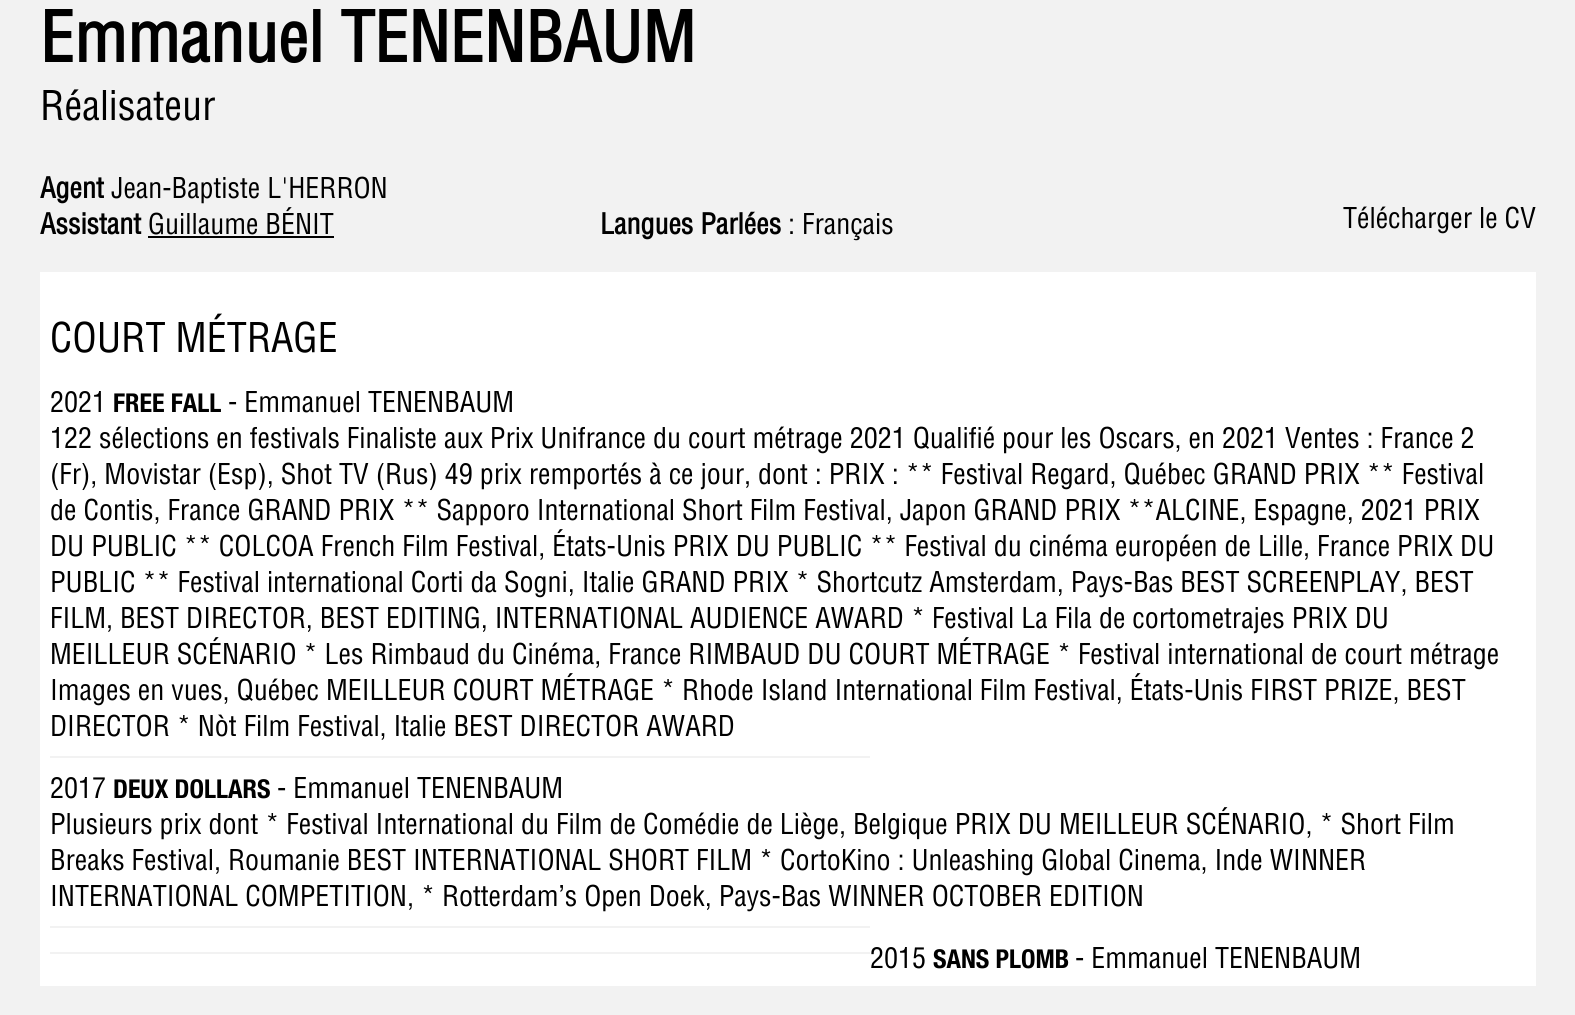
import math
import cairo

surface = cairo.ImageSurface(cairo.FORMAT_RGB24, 1575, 1015)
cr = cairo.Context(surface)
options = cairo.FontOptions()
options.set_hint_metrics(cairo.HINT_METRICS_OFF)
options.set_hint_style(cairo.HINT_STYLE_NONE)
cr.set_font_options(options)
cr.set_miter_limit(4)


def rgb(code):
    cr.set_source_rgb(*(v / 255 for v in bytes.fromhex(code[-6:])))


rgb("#f2f2f2")
cr.paint()
for x, y, w, h, color in [
    (148, 236, 186, 2, "#000000"),
    (40, 272, 1496, 714, "#ffffff"),
    (50, 756, 820, 2, "#f2f2f2"),
    (50, 926, 820, 2, "#f2f2f2"),
    (50, 952, 820, 2, "#f2f2f2"),
]:
    rgb(color)
    cr.rectangle(x, y, w, h)
    cr.fill()
cr.select_font_face("Helvetica", cairo.FONT_SLANT_NORMAL, cairo.FONT_WEIGHT_BOLD)
cr.set_font_size(68)
rgb("#000000")
cr.move_to(40, 62)
cr.show_text("Emmanuel TENENBAUM")
cr.select_font_face("Helvetica")
cr.set_font_size(40)
cr.move_to(40, 120)
cr.show_text("Réalisateur")
cr.select_font_face("Helvetica", cairo.FONT_SLANT_NORMAL, cairo.FONT_WEIGHT_BOLD)
cr.set_font_size(28)
cr.move_to(40, 198)
cr.show_text("Agent")
cr.select_font_face("Helvetica")
cr.move_to(111, 198)
cr.show_text("Jean-Baptiste L'HERRON")
cr.select_font_face("Helvetica", cairo.FONT_SLANT_NORMAL, cairo.FONT_WEIGHT_BOLD)
cr.move_to(40, 234)
cr.show_text("Assistant")
cr.select_font_face("Helvetica")
cr.move_to(148, 234)
cr.show_text("Guillaume BÉNIT")
cr.move_to(1343, 228)
cr.show_text("Télécharger le CV")
cr.select_font_face("Helvetica", cairo.FONT_SLANT_NORMAL, cairo.FONT_WEIGHT_BOLD)
cr.move_to(600, 234)
cr.show_text("Langues Parlées")
cr.select_font_face("Helvetica")
cr.move_to(788, 234)
cr.show_text(": Français")
cr.set_font_size(40)
cr.move_to(50, 352)
cr.show_text("COURT MÉTRAGE")
cr.set_font_size(28)
cr.move_to(50, 412)
cr.show_text("2021")
cr.select_font_face("Helvetica Neue", cairo.FONT_SLANT_NORMAL, cairo.FONT_WEIGHT_BOLD)
cr.set_font_size(26)
cr.move_to(113, 412)
cr.show_text("FREE FALL")
cr.select_font_face("Helvetica")
cr.set_font_size(28)
for x, y, s in [
    (228, 412, "- Emmanuel TENENBAUM"),
    (50, 448, "122 sélections en festivals Finaliste aux Prix Unifrance du court métrage 2021 Qualifié pour les Oscars, en 2021 Ventes : France 2"),
    (50, 484, "(Fr), Movistar (Esp), Shot TV (Rus) 49 prix remportés à ce jour, dont : PRIX : ** Festival Regard, Québec GRAND PRIX ** Festival"),
    (50, 520, "de Contis, France GRAND PRIX ** Sapporo International Short Film Festival, Japon GRAND PRIX **ALCINE, Espagne, 2021 PRIX"),
    (50, 556, "DU PUBLIC ** COLCOA French Film Festival, États-Unis PRIX DU PUBLIC ** Festival du cinéma européen de Lille, France PRIX DU"),
    (50, 592, "PUBLIC ** Festival international Corti da Sogni, Italie GRAND PRIX * Shortcutz Amsterdam, Pays-Bas BEST SCREENPLAY, BEST"),
    (50, 628, "FILM, BEST DIRECTOR, BEST EDITING, INTERNATIONAL AUDIENCE AWARD * Festival La Fila de cortometrajes PRIX DU"),
    (50, 664, "MEILLEUR SCÉNARIO * Les Rimbaud du Cinéma, France RIMBAUD DU COURT MÉTRAGE * Festival international de court métrage"),
    (50, 700, "Images en vues, Québec MEILLEUR COURT MÉTRAGE * Rhode Island International Film Festival, États-Unis FIRST PRIZE, BEST"),
    (50, 736, "DIRECTOR * Nòt Film Festival, Italie BEST DIRECTOR AWARD"),
    (50, 798, "2017"),
]:
    cr.move_to(x, y)
    cr.show_text(s)
cr.select_font_face("Helvetica Neue", cairo.FONT_SLANT_NORMAL, cairo.FONT_WEIGHT_BOLD)
cr.set_font_size(26)
cr.move_to(113, 798)
cr.show_text("DEUX DOLLARS")
cr.select_font_face("Helvetica")
cr.set_font_size(28)
for x, y, s in [
    (277, 798, "- Emmanuel TENENBAUM"),
    (50, 834, "Plusieurs prix dont * Festival International du Film de Comédie de Liège, Belgique PRIX DU MEILLEUR SCÉNARIO, * Short Film"),
    (50, 870, "Breaks Festival, Roumanie BEST INTERNATIONAL SHORT FILM * CortoKino : Unleashing Global Cinema, Inde WINNER"),
    (50, 906, "INTERNATIONAL COMPETITION, * Rotterdam’s Open Doek, Pays-Bas WINNER OCTOBER EDITION"),
    (870, 968, "2015"),
]:
    cr.move_to(x, y)
    cr.show_text(s)
cr.select_font_face("Helvetica Neue", cairo.FONT_SLANT_NORMAL, cairo.FONT_WEIGHT_BOLD)
cr.set_font_size(26)
cr.move_to(933, 968)
cr.show_text("SANS PLOMB")
cr.select_font_face("Helvetica")
cr.set_font_size(28)
cr.move_to(1075, 968)
cr.show_text("- Emmanuel TENENBAUM")
surface.write_to_png("page.png")
